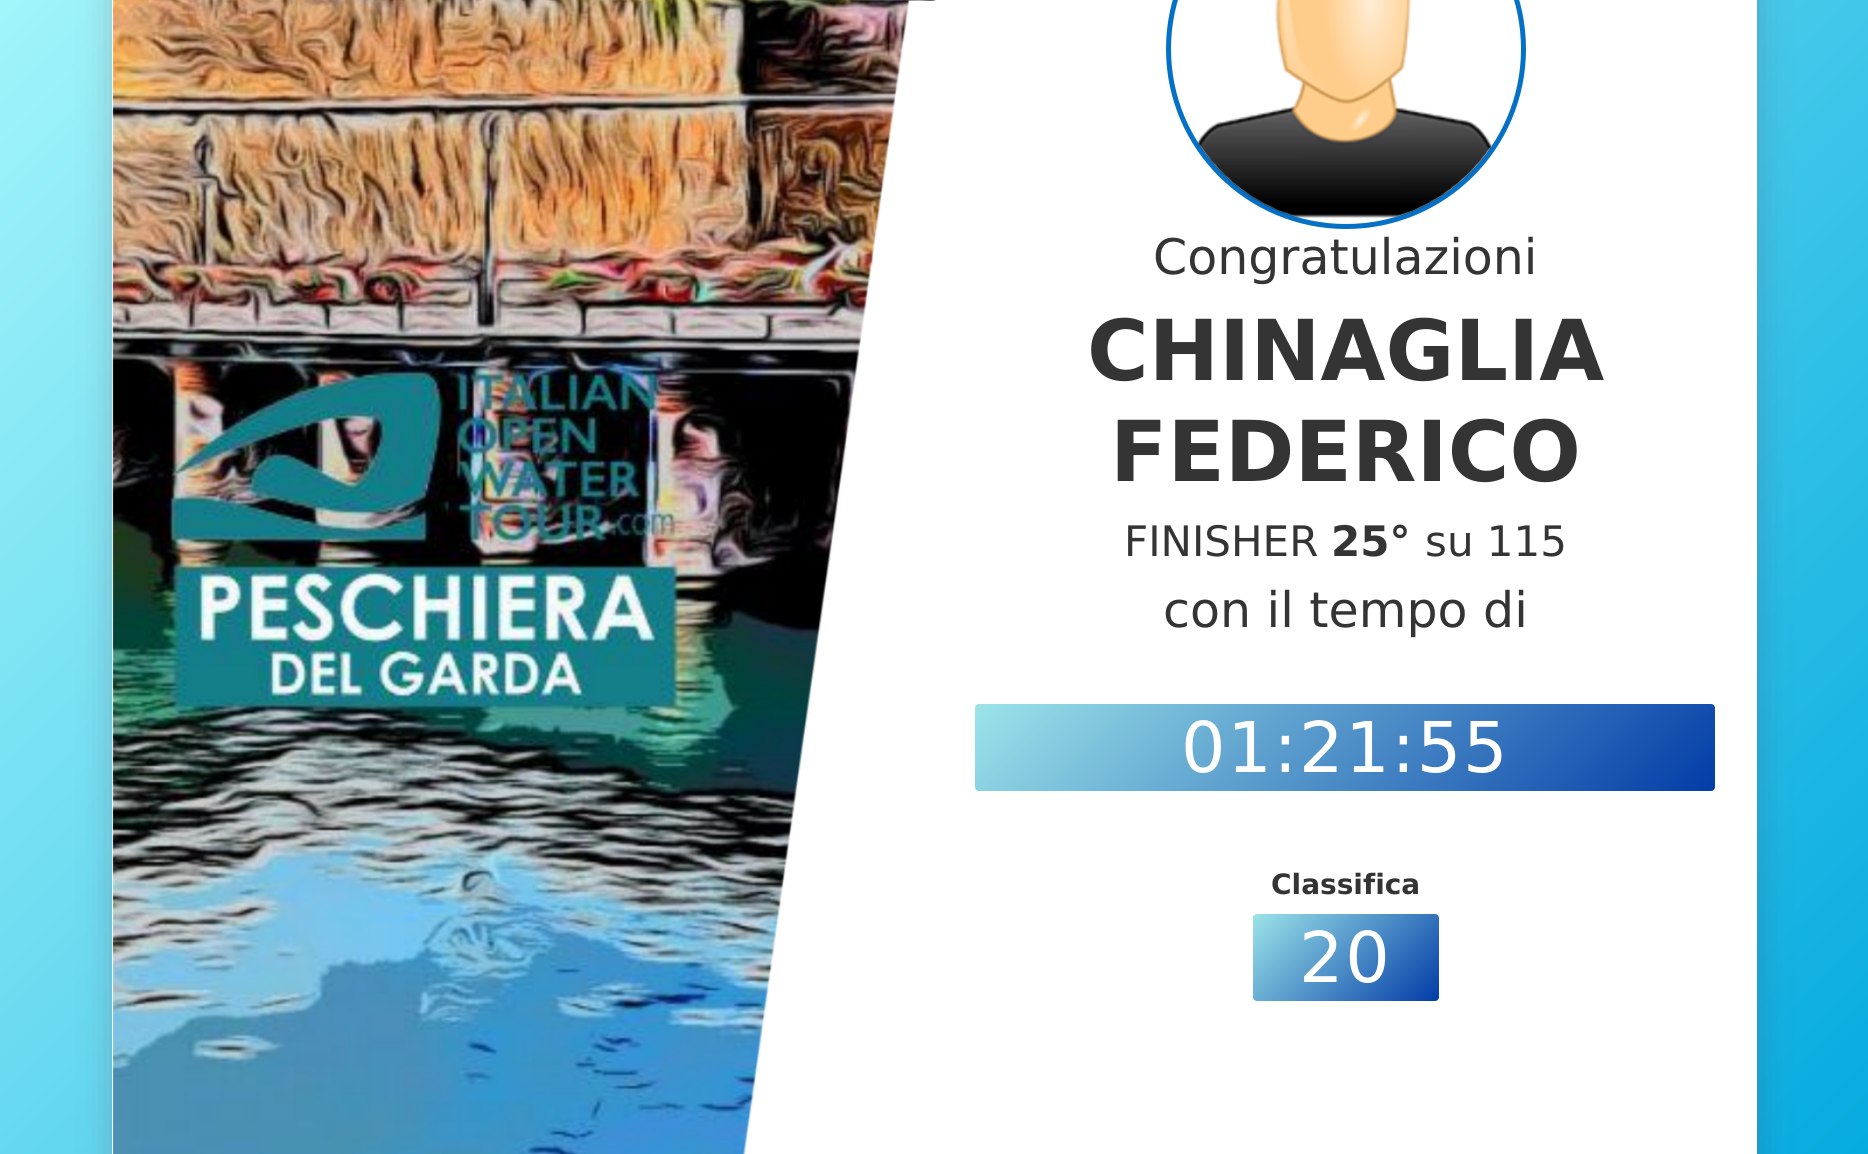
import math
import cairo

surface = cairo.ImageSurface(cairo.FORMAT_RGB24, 1868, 1154)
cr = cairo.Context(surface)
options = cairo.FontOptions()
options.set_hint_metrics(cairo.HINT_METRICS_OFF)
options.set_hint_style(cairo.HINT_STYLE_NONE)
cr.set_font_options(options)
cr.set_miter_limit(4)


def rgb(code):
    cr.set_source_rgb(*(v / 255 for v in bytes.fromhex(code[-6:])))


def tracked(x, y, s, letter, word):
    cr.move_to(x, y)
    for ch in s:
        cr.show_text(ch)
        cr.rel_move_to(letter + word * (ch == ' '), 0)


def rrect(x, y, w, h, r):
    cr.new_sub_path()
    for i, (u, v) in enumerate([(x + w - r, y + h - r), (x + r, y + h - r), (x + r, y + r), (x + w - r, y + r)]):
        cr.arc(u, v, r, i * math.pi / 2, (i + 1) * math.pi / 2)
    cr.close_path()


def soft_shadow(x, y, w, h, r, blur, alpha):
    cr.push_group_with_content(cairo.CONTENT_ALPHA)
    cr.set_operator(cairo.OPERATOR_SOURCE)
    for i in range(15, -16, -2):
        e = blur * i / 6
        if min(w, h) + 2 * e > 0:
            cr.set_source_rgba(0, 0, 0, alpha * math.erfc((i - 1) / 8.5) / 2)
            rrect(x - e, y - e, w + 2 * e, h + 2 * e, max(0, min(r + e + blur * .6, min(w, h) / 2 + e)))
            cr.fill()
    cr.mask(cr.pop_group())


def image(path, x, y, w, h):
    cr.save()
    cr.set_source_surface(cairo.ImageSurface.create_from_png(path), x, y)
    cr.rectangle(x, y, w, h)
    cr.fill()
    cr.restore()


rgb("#ffffff")
cr.paint()
gradient = cairo.LinearGradient(178, -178, 1691, 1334)
gradient.add_color_stop_rgba(0, 0.631, 0.957, 0.98, 1)
gradient.add_color_stop_rgba(1, 0.02, 0.671, 0.878, 1)
cr.set_source(gradient)
cr.rectangle(0, 0, 1868, 1154)
cr.fill()
rgb("#730710")
soft_shadow(112, -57, 1645, 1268, 4, 17.5, 0.2)
rgb("#ffffff")
cr.rectangle(112, 0, 1645, 1154)
cr.fill()
image("img/1.png", 112, 0, 824, 1154)
cr.arc(1346, 49, 177.5, 0, 2 * math.pi)
rgb("#0471c7")
cr.set_line_width(5)
cr.stroke()
image("img/2.png", 1197, 0, 295, 218)
gradient = cairo.LinearGradient(1138, 540, 1552, 954)
gradient.add_color_stop_rgba(0, 0.612, 0.894, 0.914, 1)
gradient.add_color_stop_rgba(1, 0.008, 0.235, 0.655, 1)
cr.set_source(gradient)
rrect(975, 704, 740, 87, 4)
cr.fill()
gradient = cairo.LinearGradient(1278, 889, 1414, 1026)
gradient.add_color_stop_rgba(0, 0.612, 0.894, 0.914, 1)
gradient.add_color_stop_rgba(1, 0.008, 0.235, 0.655, 1)
cr.set_source(gradient)
rrect(1253, 914, 186, 87, 4)
cr.fill()
cr.select_font_face("DejaVu Sans")
cr.set_font_size(49)
rgb("#343434")
cr.move_to(1153, 274)
cr.show_text("Congratulazioni")
cr.select_font_face("DejaVu Sans", cairo.FONT_SLANT_NORMAL, cairo.FONT_WEIGHT_BOLD)
cr.set_font_size(84)
cr.move_to(1087, 380)
cr.show_text("CHINAGLIA")
cr.move_to(1110, 481)
cr.show_text("FEDERICO")
cr.select_font_face("DejaVu Sans")
cr.set_font_size(42)
cr.move_to(1124, 556)
cr.show_text("FINISHER")
cr.select_font_face("DejaVu Sans", cairo.FONT_SLANT_NORMAL, cairo.FONT_WEIGHT_BOLD)
cr.move_to(1331, 556)
cr.show_text("25°")
cr.select_font_face("DejaVu Sans")
cr.move_to(1425, 556)
cr.show_text("su 115")
cr.set_font_size(49)
cr.move_to(1163, 627)
cr.show_text("con il tempo di")
cr.set_font_size(70)
rgb("#ffffff")
tracked(1181, 772, "01:21:55", 1.75, 0)
cr.select_font_face("DejaVu Sans", cairo.FONT_SLANT_NORMAL, cairo.FONT_WEIGHT_BOLD)
cr.set_font_size(28)
rgb("#343434")
cr.move_to(1271, 894)
cr.show_text("Classifica")
cr.select_font_face("DejaVu Sans")
cr.set_font_size(70)
rgb("#ffffff")
tracked(1299, 982, "20", 1.75, 0)
surface.write_to_png("page.png")
